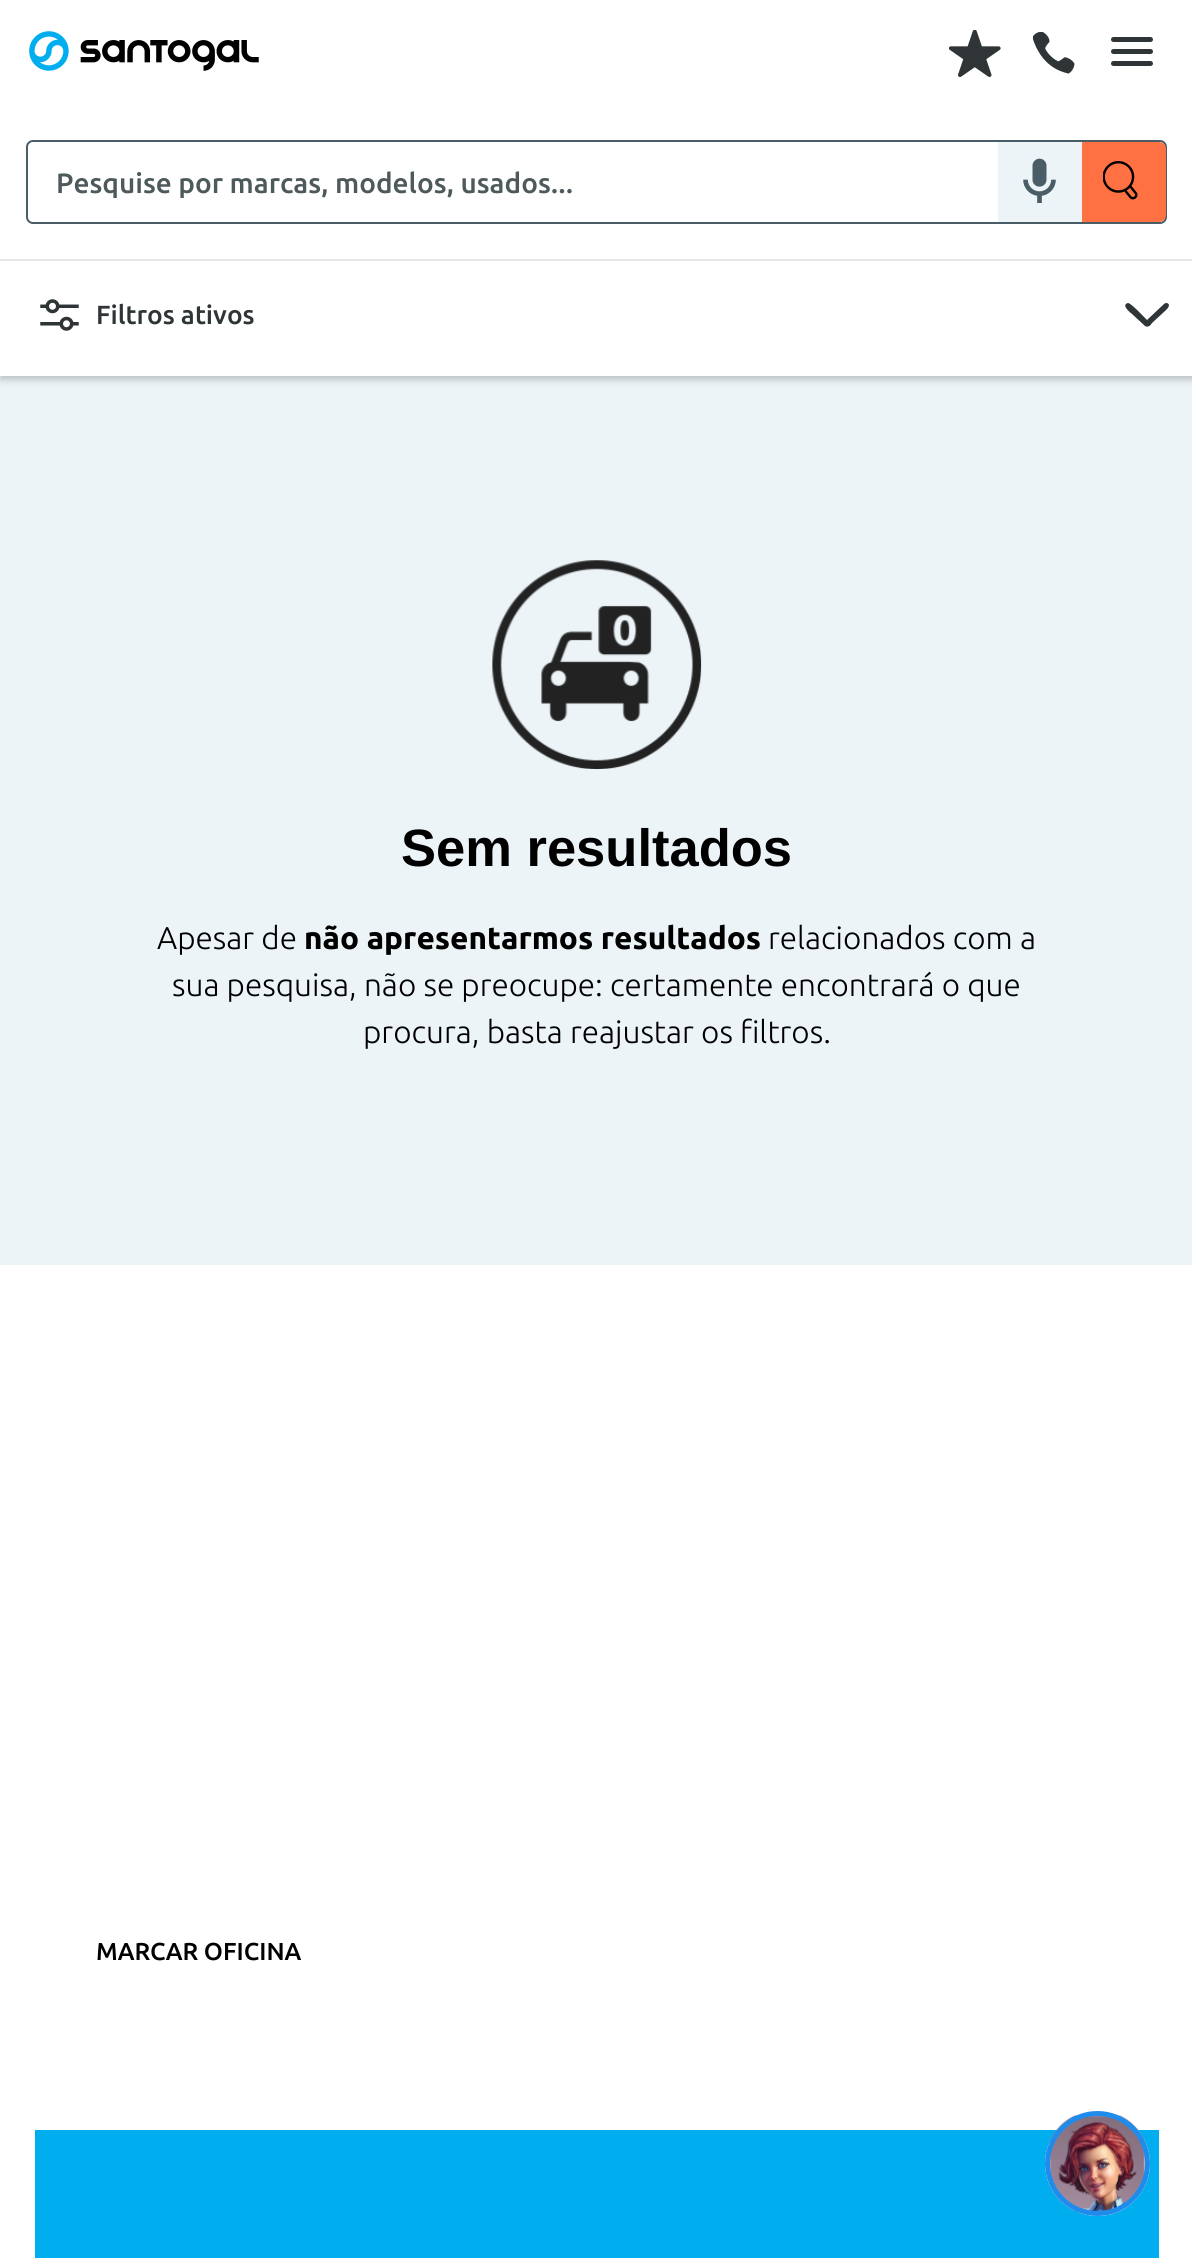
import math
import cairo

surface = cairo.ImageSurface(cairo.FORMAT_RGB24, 1192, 2258)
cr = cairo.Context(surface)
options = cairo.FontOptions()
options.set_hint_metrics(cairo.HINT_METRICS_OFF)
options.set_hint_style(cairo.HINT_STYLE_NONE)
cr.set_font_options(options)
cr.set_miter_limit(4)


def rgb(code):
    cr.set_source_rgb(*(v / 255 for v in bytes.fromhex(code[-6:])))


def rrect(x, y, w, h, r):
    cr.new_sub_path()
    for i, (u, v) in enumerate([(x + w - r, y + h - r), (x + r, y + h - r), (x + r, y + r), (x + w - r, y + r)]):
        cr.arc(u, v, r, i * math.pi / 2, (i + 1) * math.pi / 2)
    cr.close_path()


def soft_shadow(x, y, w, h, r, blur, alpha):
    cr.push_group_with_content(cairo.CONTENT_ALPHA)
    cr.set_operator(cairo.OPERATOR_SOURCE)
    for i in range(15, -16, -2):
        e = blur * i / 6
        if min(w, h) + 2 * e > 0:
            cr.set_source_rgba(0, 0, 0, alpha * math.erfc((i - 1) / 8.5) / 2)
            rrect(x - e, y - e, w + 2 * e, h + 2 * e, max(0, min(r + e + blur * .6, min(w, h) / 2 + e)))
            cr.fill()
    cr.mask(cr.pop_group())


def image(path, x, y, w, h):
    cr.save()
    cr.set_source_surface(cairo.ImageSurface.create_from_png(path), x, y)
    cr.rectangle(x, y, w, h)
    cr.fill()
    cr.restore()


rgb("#ffffff")
cr.paint()
image("img/1.png", 29, 31, 230, 40)
image("img/2.png", 949, 30, 52, 47)
image("img/3.png", 1033, 32, 42, 42)
rgb("#2f3537")
rrect(1111, 49, 42, 5, 2.5)
cr.fill()
rrect(1111, 37, 42, 5, 2.5)
cr.fill()
rrect(1111, 61, 42, 5, 2.5)
cr.fill()
rgb("#edf4f7")
cr.rectangle(0, 376, 1192, 889)
cr.fill()
rgb("#000000")
soft_shadow(0, 109, 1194, 271, 0, 3.5, 0.2)
rgb("#ffffff")
cr.rectangle(0, 103, 1192, 273)
cr.fill()
rgb("#e6e6e6")
cr.new_path()
cr.move_to(0, 259)
cr.line_to(0, 261)
cr.line_to(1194, 261)
cr.line_to(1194, 142)
cr.line_to(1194, 259)
cr.close_path()
cr.fill()
rrect(27, 141, 1139, 82, 6)
rgb("#4a5d66")
cr.stroke()
rgb("#ffffff")
cr.new_path()
cr.move_to(35, 142)
cr.line_to(998, 142)
cr.line_to(998, 222)
cr.line_to(35, 222)
cr.curve_to(31, 222, 28, 219, 28, 215)
cr.line_to(28, 149)
cr.curve_to(28, 145, 31, 142, 35, 142)
cr.close_path()
cr.fill()
rgb("#edf4f7")
cr.rectangle(998, 142, 84, 80)
cr.fill()
image("img/4.png", 1023, 158, 33, 45)
rgb("#ff7142")
cr.new_path()
cr.move_to(1082, 142)
cr.line_to(1159, 142)
cr.curve_to(1163, 142, 1166, 145, 1166, 149)
cr.line_to(1166, 215)
cr.curve_to(1166, 219, 1163, 222, 1159, 222)
cr.line_to(1082, 222)
cr.close_path()
cr.fill()
image("img/5.png", 1103, 161, 35, 39)
image("img/6.png", 40, 299, 39, 32)
rgb("#2f3537")
cr.set_fill_rule(cairo.FILL_RULE_EVEN_ODD)
cr.new_path()
cr.move_to(1164, 304)
cr.line_to(1147, 320)
cr.curve_to(1144, 317, 1131, 303, 1128, 303)
cr.curve_to(1120, 305, 1132, 314, 1132, 314)
cr.line_to(1145, 326)
cr.curve_to(1148, 328, 1151, 325, 1152, 323)
cr.line_to(1165, 311)
cr.curve_to(1166, 310, 1172, 305, 1167, 303)
cr.curve_to(1166, 303, 1165, 303, 1164, 304)
cr.fill()
image("img/7.png", 492, 560, 210, 209)
rgb("#00aeef")
cr.rectangle(35, 2130, 1124, 128)
cr.fill()
rgb("#ffffff")
cr.arc(1097.5, 2163.5, 52.5, 0, 2 * math.pi)
cr.fill()
image("img/8.png", 1049, 2115, 96, 98)
cr.arc(1097.5, 2163.5, 50, 0, 2 * math.pi)
rgb("#1f8ceb")
cr.set_line_width(5)
cr.stroke()
cr.save()
cr.set_fill_rule(cairo.FILL_RULE_WINDING)
cr.rectangle(56, 166, 914, 32)
cr.clip()
cr.select_font_face("Ubuntu Medium")
cr.set_font_size(28)
rgb("#4e595c")
cr.move_to(56, 193)
cr.show_text("Pesquise por marcas, modelos, usados...")
cr.restore()
cr.select_font_face("Ubuntu Medium")
cr.set_font_size(26.25)
rgb("#2f3537")
cr.move_to(96, 324)
cr.show_text("Filtros ativos")
cr.select_font_face("Liberation Sans", cairo.FONT_SLANT_NORMAL, cairo.FONT_WEIGHT_BOLD)
cr.set_font_size(52.5)
rgb("#000000")
cr.move_to(401, 866)
cr.show_text("Sem resultados")
cr.select_font_face("Ubuntu Light")
cr.set_font_size(31.5)
cr.move_to(157, 949)
cr.show_text("Apesar de")
cr.select_font_face("Ubuntu", cairo.FONT_SLANT_NORMAL, cairo.FONT_WEIGHT_BOLD)
cr.move_to(304, 949)
cr.show_text("não apresentarmos resultados")
cr.select_font_face("Ubuntu Light")
for x, y, s in [
    (768, 949, "relacionados com a"),
    (172, 996, "sua pesquisa, não se preocupe: certamente encontrará o que"),
    (363, 1043, "procura, basta reajustar os filtros."),
]:
    cr.move_to(x, y)
    cr.show_text(s)
cr.select_font_face("Ubuntu Medium")
cr.set_font_size(24.5)
cr.move_to(96, 1960)
cr.show_text("MARCAR OFICINA")
surface.write_to_png("page.png")
